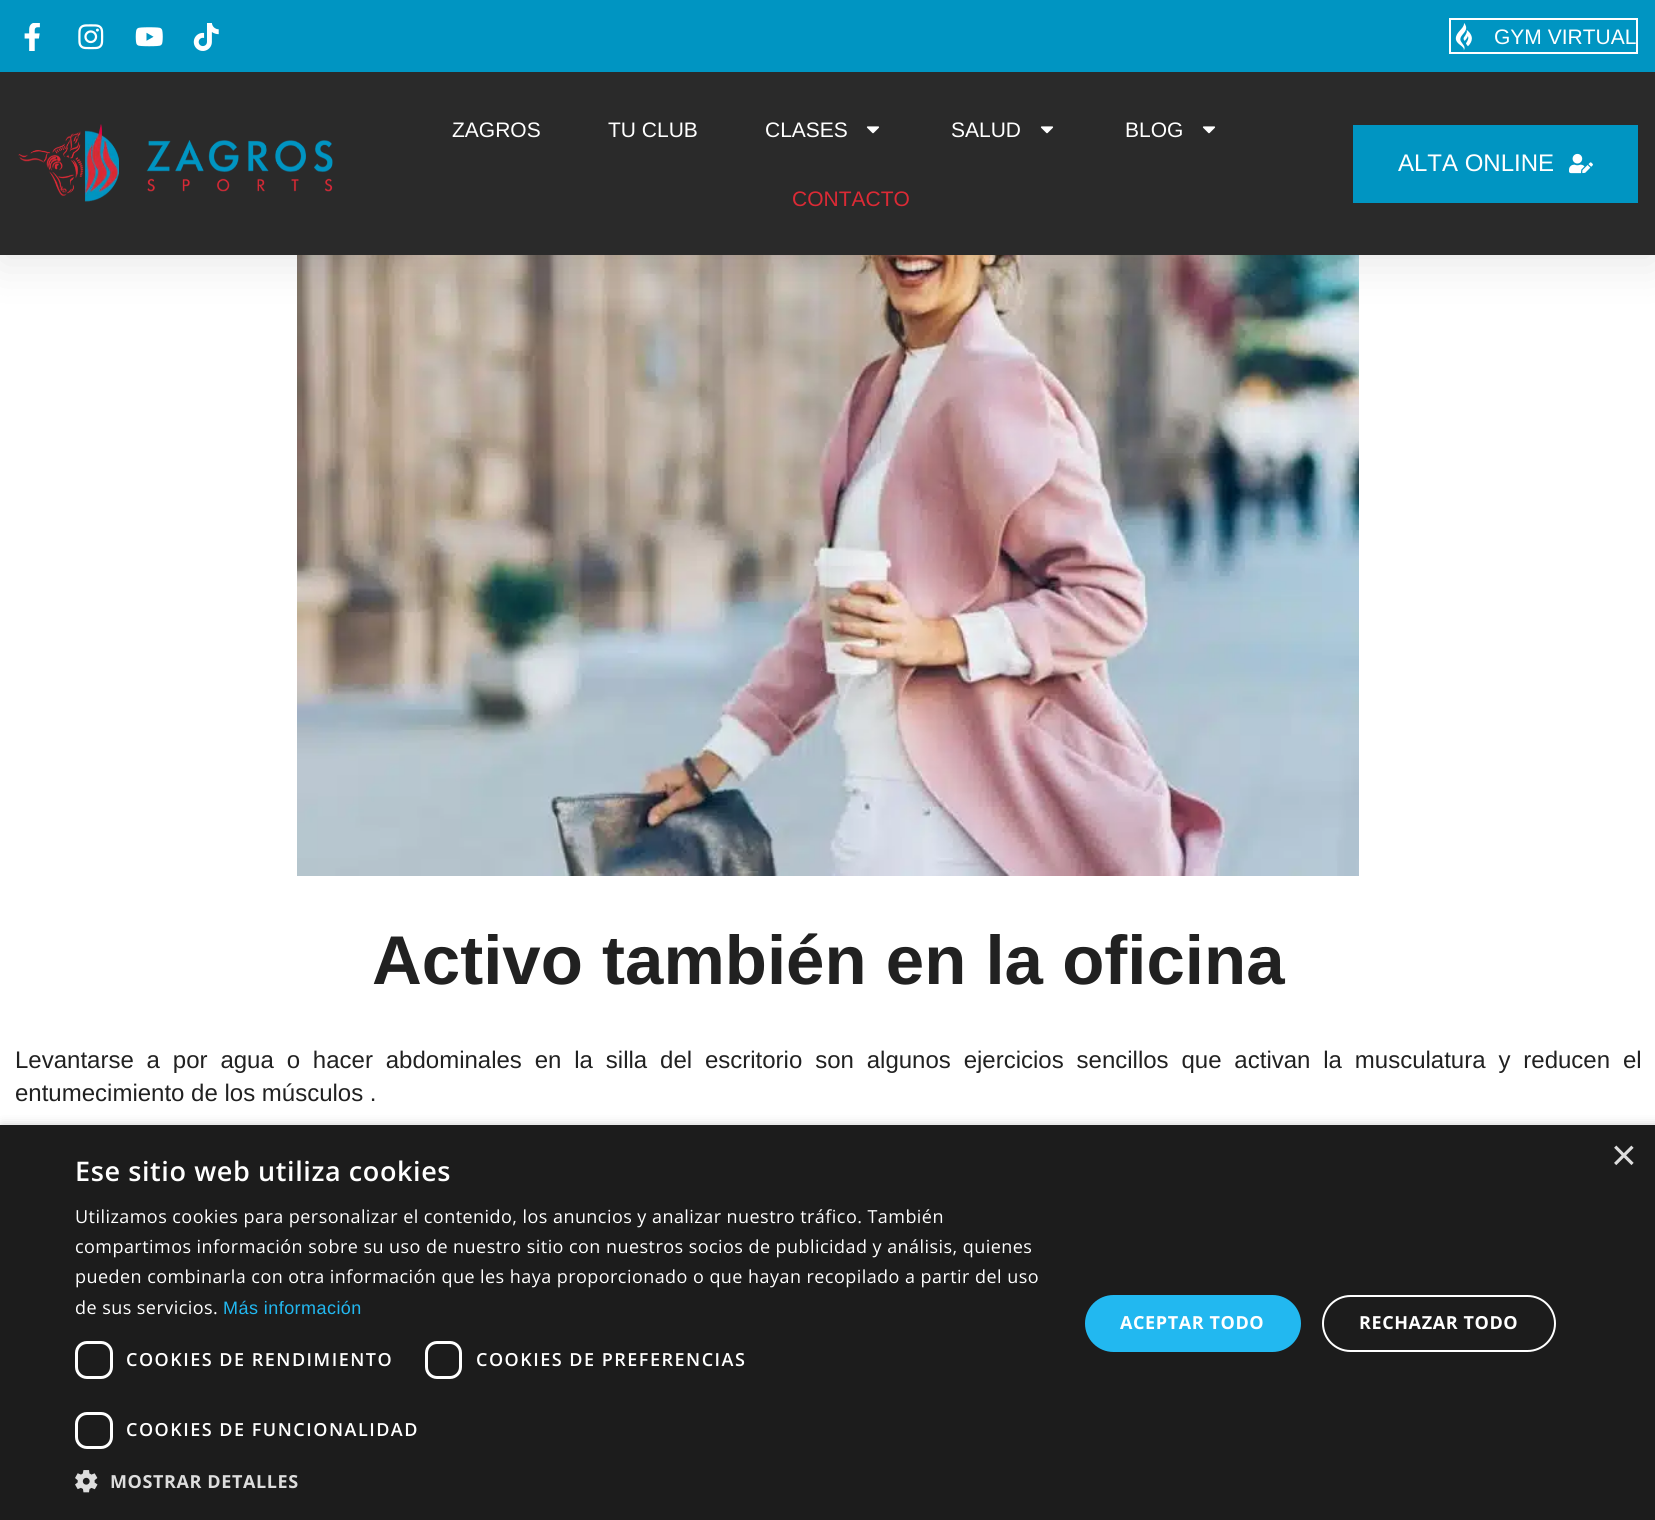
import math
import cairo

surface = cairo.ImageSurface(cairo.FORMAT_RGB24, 1655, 1520)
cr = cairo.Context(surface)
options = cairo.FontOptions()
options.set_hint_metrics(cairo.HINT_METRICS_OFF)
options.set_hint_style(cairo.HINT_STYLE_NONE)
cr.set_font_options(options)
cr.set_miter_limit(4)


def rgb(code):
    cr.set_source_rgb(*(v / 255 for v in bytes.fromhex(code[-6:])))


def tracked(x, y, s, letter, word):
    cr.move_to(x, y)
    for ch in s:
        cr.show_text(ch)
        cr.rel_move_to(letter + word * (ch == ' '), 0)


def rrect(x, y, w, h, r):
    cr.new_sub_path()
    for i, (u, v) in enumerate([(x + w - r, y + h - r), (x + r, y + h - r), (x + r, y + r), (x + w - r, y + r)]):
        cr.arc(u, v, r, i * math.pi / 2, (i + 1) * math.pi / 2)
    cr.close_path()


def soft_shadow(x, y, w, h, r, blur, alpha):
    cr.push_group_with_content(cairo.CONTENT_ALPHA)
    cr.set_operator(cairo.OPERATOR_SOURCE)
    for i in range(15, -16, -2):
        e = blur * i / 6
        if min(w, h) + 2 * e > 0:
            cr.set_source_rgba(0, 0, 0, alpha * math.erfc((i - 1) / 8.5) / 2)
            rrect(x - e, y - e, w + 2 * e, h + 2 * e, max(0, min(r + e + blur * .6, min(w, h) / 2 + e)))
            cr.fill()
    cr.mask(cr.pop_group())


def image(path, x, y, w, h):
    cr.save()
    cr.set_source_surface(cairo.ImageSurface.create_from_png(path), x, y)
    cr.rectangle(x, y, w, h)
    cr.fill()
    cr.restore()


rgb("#ffffff")
cr.paint()
image("img/9.png", 297, 255, 1062, 621)
rgb("#000000")
soft_shadow(0, 8, 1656, 255, 0, 22.5, 0.1)
rgb("#2a2a2a")
cr.rectangle(0, 72, 1655, 183)
cr.fill()
rgb("#0095c2")
cr.rectangle(0, 0, 1655, 72)
cr.fill()
image("img/1.png", 24, 23, 16, 28)
image("img/2.png", 78, 24, 26, 26)
image("img/3.png", 135, 27, 28, 20)
image("img/4.png", 193, 23, 26, 28)
cr.rectangle(1450, 19, 187, 34)
rgb("#ffffff")
cr.stroke()
image("img/5.png", 1455, 23, 17, 28)
image("img/6.png", 18, 124, 315, 78)
image("img/7.png", 866, 126, 14, 8)
image("img/7.png", 1040, 126, 14, 8)
image("img/7.png", 1202, 126, 14, 8)
rgb("#0095c2")
cr.rectangle(1353, 125, 285, 78)
cr.fill()
image("img/8.png", 1569, 153, 24, 21)
rgb("#000000")
soft_shadow(2, 1128, 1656, 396, 0, 6, 0.35)
rgb("#1c1c1c")
cr.rectangle(0, 1125, 1655, 395)
cr.fill()
rrect(76.5, 1342.5, 35, 35, 10.5)
rgb("#ffffff")
cr.set_line_width(3)
cr.stroke()
rrect(426.5, 1342.5, 34, 35, 10.5)
cr.stroke()
rrect(76.5, 1413.5, 35, 34, 10.5)
cr.stroke()
image("img/10.png", 75, 1470, 23, 23)
rgb("#22b8f0")
rrect(1085, 1295, 216, 57, 28.5)
cr.fill()
rrect(1323, 1296, 232, 55, 27.5)
rgb("#ffffff")
cr.set_line_width(2)
cr.stroke()
cr.select_font_face("Liberation Sans")
cr.set_font_size(21)
for x, y, s in [
    (1494, 44, "GYM VIRTUAL"),
    (452, 137, "ZAGROS"),
    (608, 137, "TU CLUB"),
    (765, 137, "CLASES"),
    (951, 137, "SALUD"),
    (1125, 137, "BLOG"),
]:
    cr.move_to(x, y)
    cr.show_text(s)
rgb("#dc2a35")
cr.move_to(792, 206)
cr.show_text("CONTACTO")
cr.set_font_size(24)
rgb("#ffffff")
cr.move_to(1398, 171)
cr.show_text("ALTA ONLINE")
cr.select_font_face("Liberation Sans", cairo.FONT_SLANT_NORMAL, cairo.FONT_WEIGHT_BOLD)
cr.set_font_size(69)
rgb("#212121")
cr.move_to(372, 984)
cr.show_text("Activo también en la oficina")
cr.select_font_face("Liberation Sans")
cr.set_font_size(24)
tracked(15, 1068, "Levantarse a por agua o hacer abdominales en la silla del escritorio son algunos ejercicios sencillos que activan la musculatura y reducen el", 0, 6.2)
cr.move_to(15, 1101)
cr.show_text("entumecimiento de los músculos .")
cr.set_font_size(44)
rgb("#dddddd")
cr.move_to(1611, 1170)
cr.show_text("×")
cr.select_font_face("Open Sans SemiBold")
cr.set_font_size(27)
rgb("#ffffff")
tracked(75, 1181, "Ese sitio web utiliza cookies", 0.6, 0)
cr.select_font_face("Open Sans")
cr.set_font_size(18)
for x, y, s in [
    (75, 1223, "Utilizamos cookies para personalizar el contenido, los anuncios y analizar nuestro tráfico. También"),
    (75, 1253, "compartimos información sobre su uso de nuestro sitio con nuestros socios de publicidad y análisis, quienes"),
    (75, 1283, "pueden combinarla con otra información que les haya proporcionado o que hayan recopilado a partir del uso"),
    (75, 1314, "de sus servicios."),
]:
    tracked(x, y, s, 0.45, 0)
cr.select_font_face("Liberation Sans")
rgb("#22b8f0")
tracked(223, 1314, "Más información", 0.45, 0)
cr.select_font_face("Open Sans SemiBold")
rgb("#ffffff")
for x, y, s in [
    (126, 1366, "COOKIES DE RENDIMIENTO"),
    (476, 1366, "COOKIES DE PREFERENCIAS"),
    (126, 1436, "COOKIES DE FUNCIONALIDAD"),
]:
    tracked(x, y, s, 1.5, 0)
cr.select_font_face("Open Sans", cairo.FONT_SLANT_NORMAL, cairo.FONT_WEIGHT_BOLD)
rgb("#dddddd")
tracked(110, 1488, "MOSTRAR DETALLES", 0.6, 0)
rgb("#ffffff")
tracked(1120, 1329, "ACEPTAR TODO", 0.6, 0)
tracked(1359, 1329, "RECHAZAR TODO", 0.6, 0)
surface.write_to_png("page.png")
